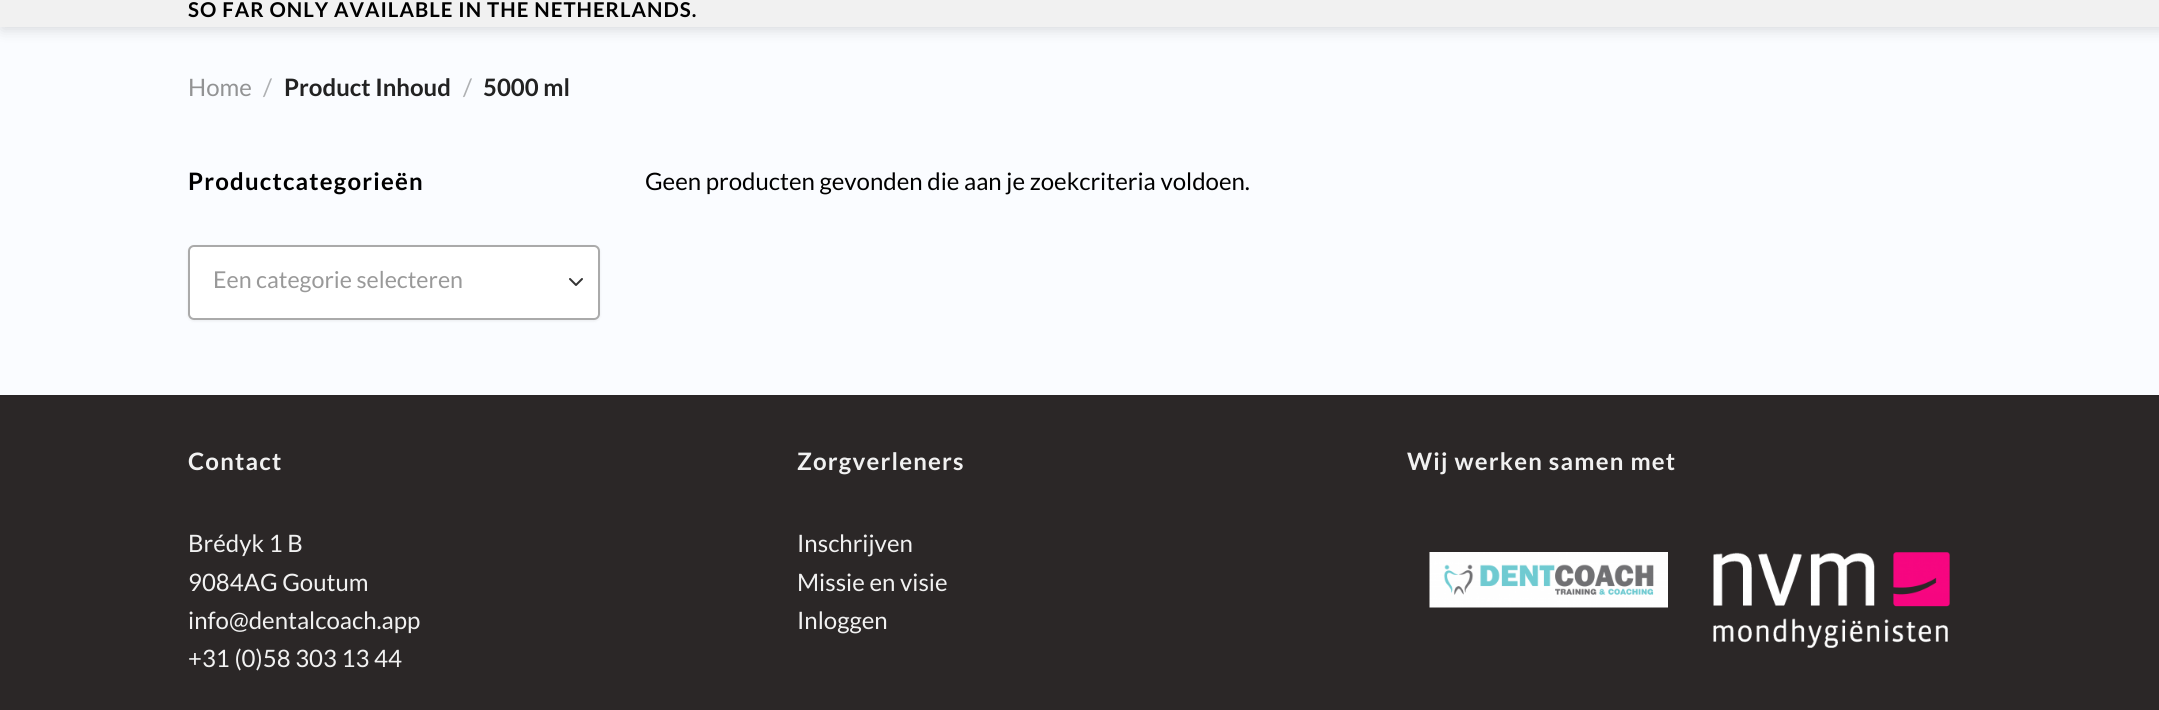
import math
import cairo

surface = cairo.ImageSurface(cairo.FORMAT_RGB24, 2159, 710)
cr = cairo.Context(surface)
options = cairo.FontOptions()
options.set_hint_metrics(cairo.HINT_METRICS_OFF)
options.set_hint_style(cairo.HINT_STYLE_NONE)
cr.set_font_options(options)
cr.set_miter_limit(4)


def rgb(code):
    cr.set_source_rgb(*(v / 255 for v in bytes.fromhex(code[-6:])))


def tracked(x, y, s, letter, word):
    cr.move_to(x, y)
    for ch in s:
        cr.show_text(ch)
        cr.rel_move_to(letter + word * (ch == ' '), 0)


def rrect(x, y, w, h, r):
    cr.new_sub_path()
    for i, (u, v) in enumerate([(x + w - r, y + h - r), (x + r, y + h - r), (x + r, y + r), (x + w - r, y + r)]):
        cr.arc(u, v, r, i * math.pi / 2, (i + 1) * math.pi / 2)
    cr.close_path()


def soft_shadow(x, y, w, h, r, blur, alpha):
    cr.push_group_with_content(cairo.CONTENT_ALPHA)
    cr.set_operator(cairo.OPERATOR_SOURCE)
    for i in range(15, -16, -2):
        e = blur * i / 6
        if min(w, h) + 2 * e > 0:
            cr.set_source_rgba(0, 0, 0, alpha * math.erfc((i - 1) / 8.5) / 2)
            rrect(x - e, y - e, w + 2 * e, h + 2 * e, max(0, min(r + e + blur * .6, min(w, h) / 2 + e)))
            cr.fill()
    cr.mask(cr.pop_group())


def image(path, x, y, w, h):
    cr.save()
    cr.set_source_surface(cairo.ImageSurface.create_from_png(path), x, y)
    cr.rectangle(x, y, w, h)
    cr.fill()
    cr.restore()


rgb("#fafcff")
cr.paint()
rgb("#000000")
soft_shadow(2, -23, 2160, 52, 0, 7.5, 0.15)
rgb("#f1f1f1")
cr.rectangle(0, 0, 2159, 27)
cr.fill()
rgb("#000000")
soft_shadow(188, 246, 412, 75, 6, 1.5, 0.07)
rgb("#ffffff")
rrect(188, 245, 412, 75, 6)
cr.fill()
cr.new_path()
cr.move_to(570, 279)
cr.line_to(576, 285)
cr.line_to(582, 279)
rgb("#333333")
cr.set_line_cap(cairo.LINE_CAP_ROUND)
cr.set_line_join(cairo.LINE_JOIN_ROUND)
cr.stroke()
rrect(189, 246, 410, 73, 5)
rgb("#aaaaaa")
cr.set_line_cap(cairo.LINE_CAP_BUTT)
cr.set_line_join(cairo.LINE_JOIN_MITER)
cr.stroke()
rgb("#2b2727")
cr.rectangle(0, 397, 2159, 313)
cr.fill()
rgb("#292525")
cr.rectangle(0, 395, 2159, 2)
cr.fill()
image("img/1.png", 1429, 552, 239, 56)
image("img/2.png", 1713, 552, 237, 96)
cr.select_font_face("Lato", cairo.FONT_SLANT_NORMAL, cairo.FONT_WEIGHT_BOLD)
cr.set_font_size(20.4)
rgb("#000000")
tracked(188, 17, "SO FAR ONLY AVAILABLE IN THE NETHERLANDS.", 1, 0)
cr.select_font_face("Lato")
cr.set_font_size(24)
rgb("#929394")
cr.move_to(188, 96)
cr.show_text("Home")
rgb("#aeb0b2")
cr.move_to(263, 96)
cr.show_text("/")
cr.select_font_face("Lato", cairo.FONT_SLANT_NORMAL, cairo.FONT_WEIGHT_BOLD)
rgb("#222222")
cr.move_to(284, 96)
cr.show_text("Product Inhoud")
cr.select_font_face("Lato")
rgb("#aeb0b2")
cr.move_to(463, 96)
cr.show_text("/")
cr.select_font_face("Lato", cairo.FONT_SLANT_NORMAL, cairo.FONT_WEIGHT_BOLD)
rgb("#222222")
cr.move_to(483, 96)
cr.show_text("5000 ml")
rgb("#000000")
tracked(188, 190, "Productcategorieën", 1.2, 0)
cr.select_font_face("Lato")
cr.set_font_size(23.25)
rgb("#999999")
cr.move_to(213, 288)
cr.show_text("Een categorie selecteren")
cr.set_font_size(24)
rgb("#000000")
cr.move_to(645, 190)
cr.show_text("Geen producten gevonden die aan je zoekcriteria voldoen.")
cr.select_font_face("Lato", cairo.FONT_SLANT_NORMAL, cairo.FONT_WEIGHT_BOLD)
rgb("#f1f1f1")
tracked(188, 470, "Contact", 1.2, 0)
cr.select_font_face("Lato")
for x, y, s in [
    (188, 552, "Brédyk 1 B"),
    (188, 591, "9084AG Goutum"),
    (188, 629, "info@dentalcoach.app"),
    (188, 667, "+31 (0)58 303 13 44"),
]:
    cr.move_to(x, y)
    cr.show_text(s)
cr.select_font_face("Lato", cairo.FONT_SLANT_NORMAL, cairo.FONT_WEIGHT_BOLD)
tracked(797, 470, "Zorgverleners", 1.2, 0)
cr.select_font_face("Lato")
for x, y, s in [
    (797, 552, "Inschrijven"),
    (797, 591, "Missie en visie"),
    (797, 629, "Inloggen"),
]:
    cr.move_to(x, y)
    cr.show_text(s)
cr.select_font_face("Lato", cairo.FONT_SLANT_NORMAL, cairo.FONT_WEIGHT_BOLD)
tracked(1407, 470, "Wij werken samen met", 1.2, 0)
surface.write_to_png("page.png")
